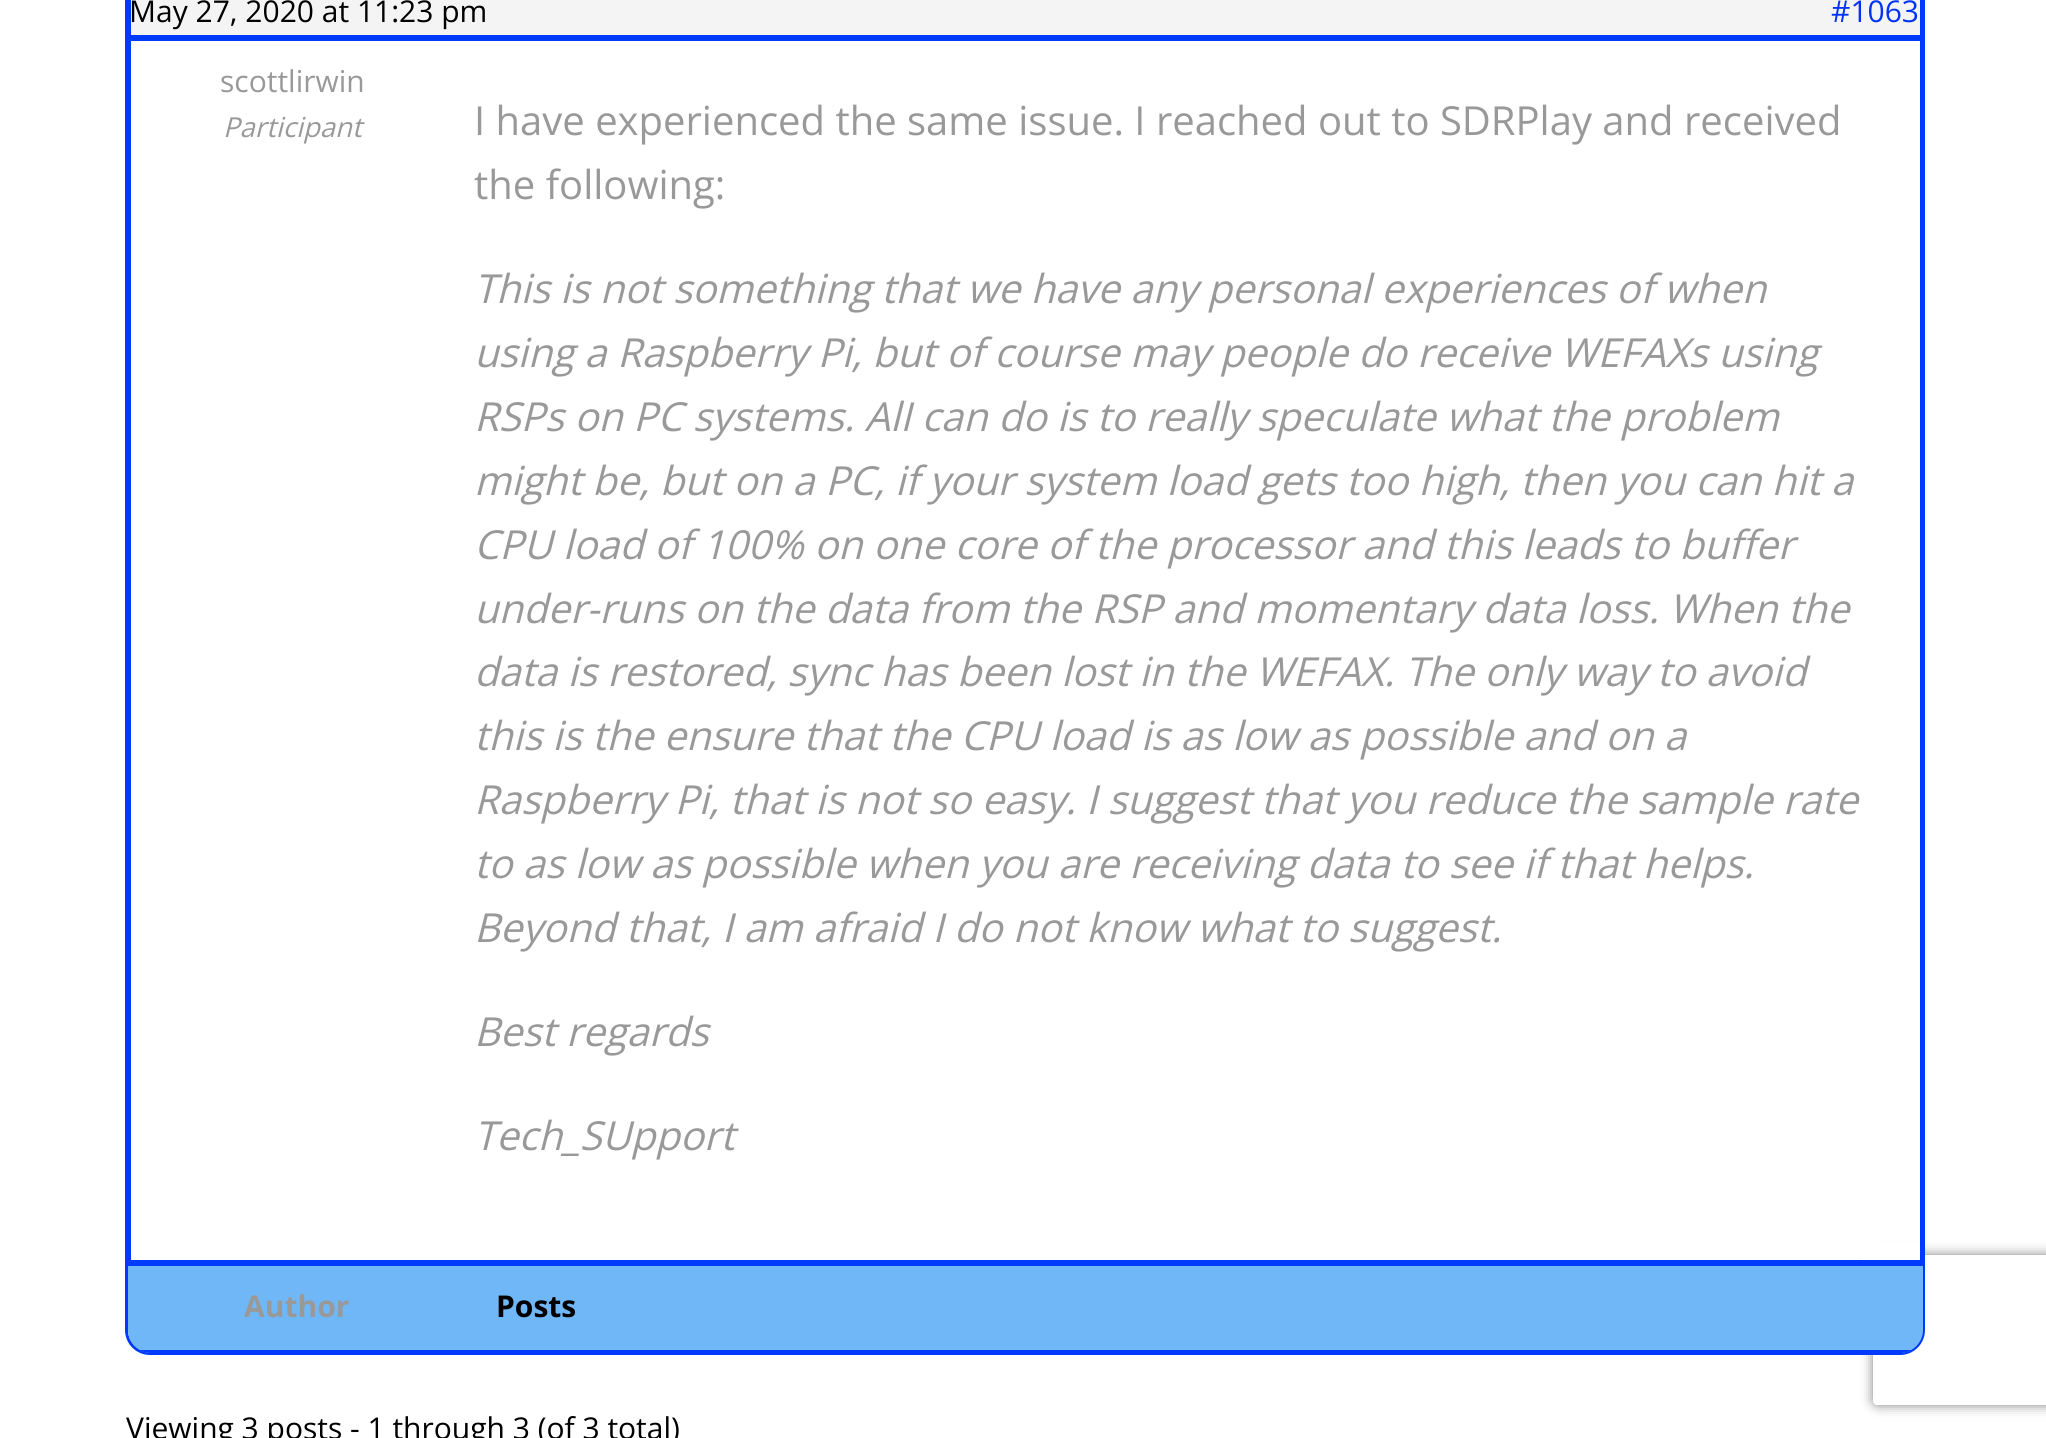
import math
import cairo

surface = cairo.ImageSurface(cairo.FORMAT_RGB24, 2046, 1438)
cr = cairo.Context(surface)
options = cairo.FontOptions()
options.set_hint_metrics(cairo.HINT_METRICS_OFF)
options.set_hint_style(cairo.HINT_STYLE_NONE)
cr.set_font_options(options)
cr.set_miter_limit(4)


def rgb(code):
    cr.set_source_rgb(*(v / 255 for v in bytes.fromhex(code[-6:])))


def rrect(x, y, w, h, r):
    cr.new_sub_path()
    for i, (u, v) in enumerate([(x + w - r, y + h - r), (x + r, y + h - r), (x + r, y + r), (x + w - r, y + r)]):
        cr.arc(u, v, r, i * math.pi / 2, (i + 1) * math.pi / 2)
    cr.close_path()


def soft_shadow(x, y, w, h, r, blur, alpha):
    cr.push_group_with_content(cairo.CONTENT_ALPHA)
    cr.set_operator(cairo.OPERATOR_SOURCE)
    for i in range(15, -16, -2):
        e = blur * i / 6
        if min(w, h) + 2 * e > 0:
            cr.set_source_rgba(0, 0, 0, alpha * math.erfc((i - 1) / 8.5) / 2)
            rrect(x - e, y - e, w + 2 * e, h + 2 * e, max(0, min(r + e + blur * .6, min(w, h) / 2 + e)))
            cr.fill()
    cr.mask(cr.pop_group())


rgb("#ffffff")
cr.paint()
cr.save()
cr.set_fill_rule(cairo.FILL_RULE_EVEN_ODD)
cr.new_path()
cr.move_to(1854, 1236)
cr.line_to(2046, 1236)
cr.line_to(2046, 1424)
cr.line_to(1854, 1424)
cr.close_path()
cr.move_to(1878, 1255)
cr.line_to(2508, 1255)
cr.curve_to(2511, 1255, 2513, 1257, 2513, 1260)
cr.line_to(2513, 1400)
cr.curve_to(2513, 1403, 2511, 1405, 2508, 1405)
cr.line_to(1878, 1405)
cr.curve_to(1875, 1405, 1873, 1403, 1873, 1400)
cr.line_to(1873, 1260)
cr.curve_to(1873, 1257, 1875, 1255, 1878, 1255)
cr.close_path()
cr.clip()
rgb("#808080")
soft_shadow(1873, 1255, 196, 150, 5, 6, 1)
cr.restore()
rrect(126.5, -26.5, 1797, 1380, 23.5)
rgb("#003afc")
cr.set_line_width(3)
cr.stroke()
rgb("#f4f4f4")
cr.rectangle(129.5, -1.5, 1792, 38)
cr.fill_preserve()
rgb("#003afc")
cr.stroke()
rgb("#ffffff")
cr.rectangle(1862, 1243, 58, 17)
cr.fill()
cr.rectangle(129.5, 39.5, 1792, 1222)
rgb("#003afc")
cr.stroke()
rgb("#6fb7f7")
cr.new_path()
cr.move_to(128, 1263)
cr.line_to(1923, 1263)
cr.line_to(1923, 1330)
cr.curve_to(1923, 1342.5, 1912.5, 1353, 1900, 1353)
cr.line_to(151, 1353)
cr.curve_to(138.5, 1353, 128, 1342.5, 128, 1330)
cr.close_path()
cr.fill()
rgb("#003afc")
cr.rectangle(128, 1263, 1795, 3)
cr.fill()
cr.save()
rrect(128, -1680, 1795, 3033, 23)
cr.clip()
cr.rectangle(139, 1350, 1773, 3)
cr.fill()
cr.restore()
cr.select_font_face("Open Sans")
cr.set_font_size(30)
rgb("#000000")
cr.move_to(129, 22)
cr.show_text("May 27, 2020 at 11:23 pm")
rgb("#0232f4")
cr.move_to(1831, 22)
cr.show_text("#1063")
rgb("#999999")
cr.move_to(220, 92)
cr.show_text("scottlirwin")
cr.select_font_face("Open Sans", cairo.FONT_SLANT_ITALIC)
cr.set_font_size(27.5)
cr.move_to(223, 137)
cr.show_text("Participant")
cr.select_font_face("Open Sans")
cr.set_font_size(40)
cr.move_to(474, 135)
cr.show_text("I have experienced the same issue. I reached out to SDRPlay and received")
cr.move_to(474, 199)
cr.show_text("the following:")
cr.select_font_face("Open Sans", cairo.FONT_SLANT_ITALIC)
for x, y, s in [
    (474, 303, "This is not something that we have any personal experiences of when"),
    (474, 367, "using a Raspberry Pi, but of course may people do receive WEFAXs using"),
    (474, 431, "RSPs on PC systems. AlI can do is to really speculate what the problem"),
    (474, 495, "might be, but on a PC, if your system load gets too high, then you can hit a"),
    (474, 559, "CPU load of 100% on one core of the processor and this leads to buffer"),
    (474, 623, "under-runs on the data from the RSP and momentary data loss. When the"),
    (474, 686, "data is restored, sync has been lost in the WEFAX. The only way to avoid"),
    (474, 750, "this is the ensure that the CPU load is as low as possible and on a"),
    (474, 814, "Raspberry Pi, that is not so easy. I suggest that you reduce the sample rate"),
    (474, 878, "to as low as possible when you are receiving data to see if that helps."),
    (474, 942, "Beyond that, I am afraid I do not know what to suggest."),
    (474, 1046, "Best regards"),
    (474, 1150, "Tech_SUpport"),
]:
    cr.move_to(x, y)
    cr.show_text(s)
cr.select_font_face("Open Sans", cairo.FONT_SLANT_NORMAL, cairo.FONT_WEIGHT_BOLD)
cr.set_font_size(30)
cr.move_to(244, 1317)
cr.show_text("Author")
rgb("#000000")
cr.move_to(496, 1317)
cr.show_text("Posts")
cr.select_font_face("Open Sans")
cr.move_to(126, 1439)
cr.show_text("Viewing 3 posts - 1 through 3 (of 3 total)")
surface.write_to_png("page.png")
